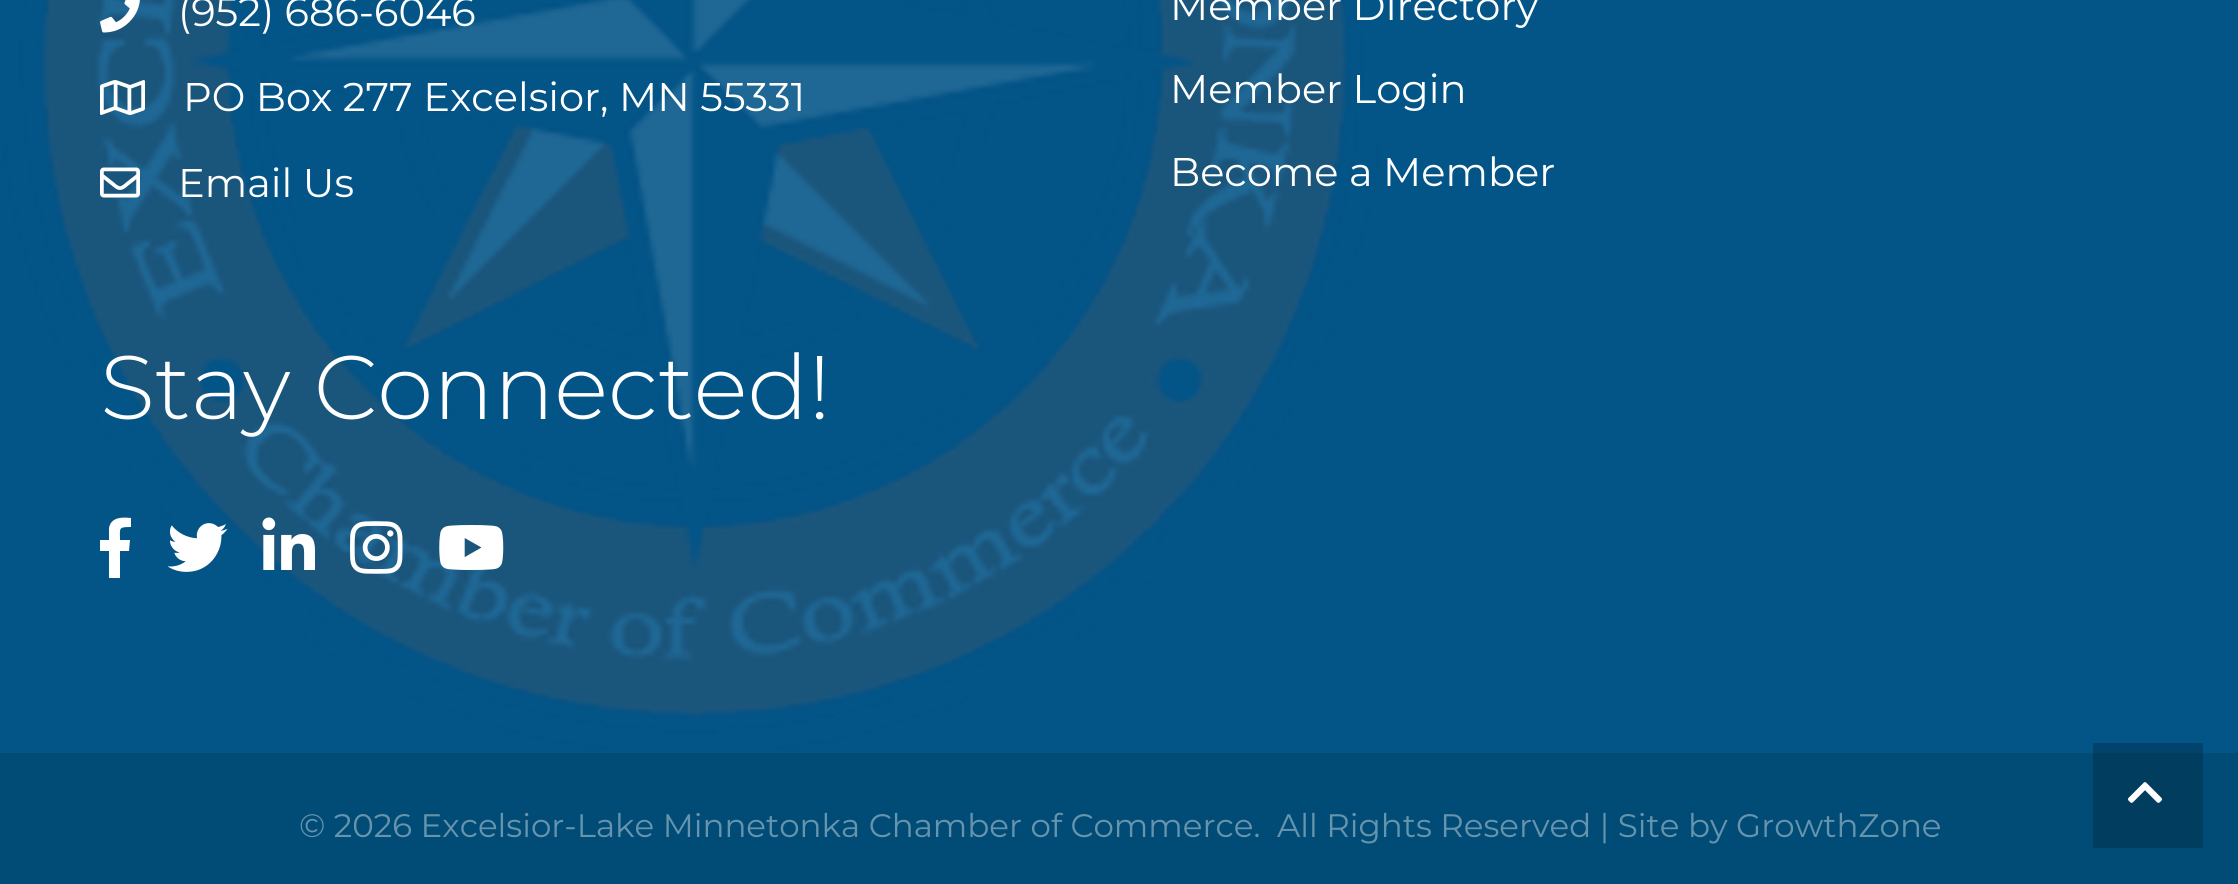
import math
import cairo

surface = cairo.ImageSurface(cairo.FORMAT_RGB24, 2238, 884)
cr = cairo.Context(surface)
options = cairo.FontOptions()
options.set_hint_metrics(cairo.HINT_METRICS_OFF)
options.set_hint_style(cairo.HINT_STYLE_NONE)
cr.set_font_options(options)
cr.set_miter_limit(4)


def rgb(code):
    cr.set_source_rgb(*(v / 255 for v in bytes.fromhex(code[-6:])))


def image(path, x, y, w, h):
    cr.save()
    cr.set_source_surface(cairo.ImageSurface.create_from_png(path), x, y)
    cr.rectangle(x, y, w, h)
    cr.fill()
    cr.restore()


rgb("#035487")
cr.paint()
rgb("#02436c")
cr.rectangle(2093, 743, 110, 10)
cr.fill()
image("img/1.png", 0, 0, 1382, 752)
image("img/2.png", 100, 0, 40, 33)
image("img/3.png", 100, 80, 45, 35)
image("img/4.png", 100, 167, 40, 31)
rgb("#ffffff")
cr.new_path()
cr.move_to(109, 578)
cr.line_to(109, 551)
cr.line_to(100, 551)
cr.line_to(100, 540)
cr.line_to(109, 540)
cr.line_to(109, 528)
cr.curve_to(111, 517, 122, 517, 131, 518)
cr.line_to(131, 527)
cr.curve_to(118, 527, 120, 528, 120, 540)
cr.line_to(130, 540)
cr.line_to(129, 551)
cr.line_to(120, 551)
cr.line_to(120, 578)
cr.close_path()
cr.fill()
image("img/5.png", 167, 523, 61, 49)
image("img/6.png", 262, 517, 53, 53)
image("img/7.png", 350, 521, 53, 53)
image("img/8.png", 439, 525, 65, 45)
rgb("#014c77")
cr.rectangle(0, 753, 2238, 131)
cr.fill()
rgb("#013d5f")
cr.rectangle(2093, 753, 110, 95)
cr.fill()
image("img/9.png", 2128, 782, 34, 21)
cr.select_font_face("Montserrat")
cr.set_font_size(40)
rgb("#ffffff")
for x, y, s in [
    (178, 26, "(952) 686-6046"),
    (183, 111, "PO Box 277 Excelsior, MN 55331"),
    (178, 197, "Email Us"),
    (1170, 20, "Member Directory"),
    (1170, 103, "Member Login"),
    (1170, 186, "Become a Member"),
]:
    cr.move_to(x, y)
    cr.show_text(s)
cr.select_font_face("Montserrat Light")
cr.set_font_size(90)
cr.move_to(100, 419)
cr.show_text("Stay Connected!")
cr.select_font_face("Montserrat")
cr.set_font_size(32.5)
rgb("#6794ad")
cr.move_to(299, 837)
cr.show_text("© 2026 Excelsior-Lake Minnetonka Chamber of Commerce.")
cr.move_to(1277, 837)
cr.show_text("All Rights Reserved | Site by GrowthZone")
surface.write_to_png("page.png")
